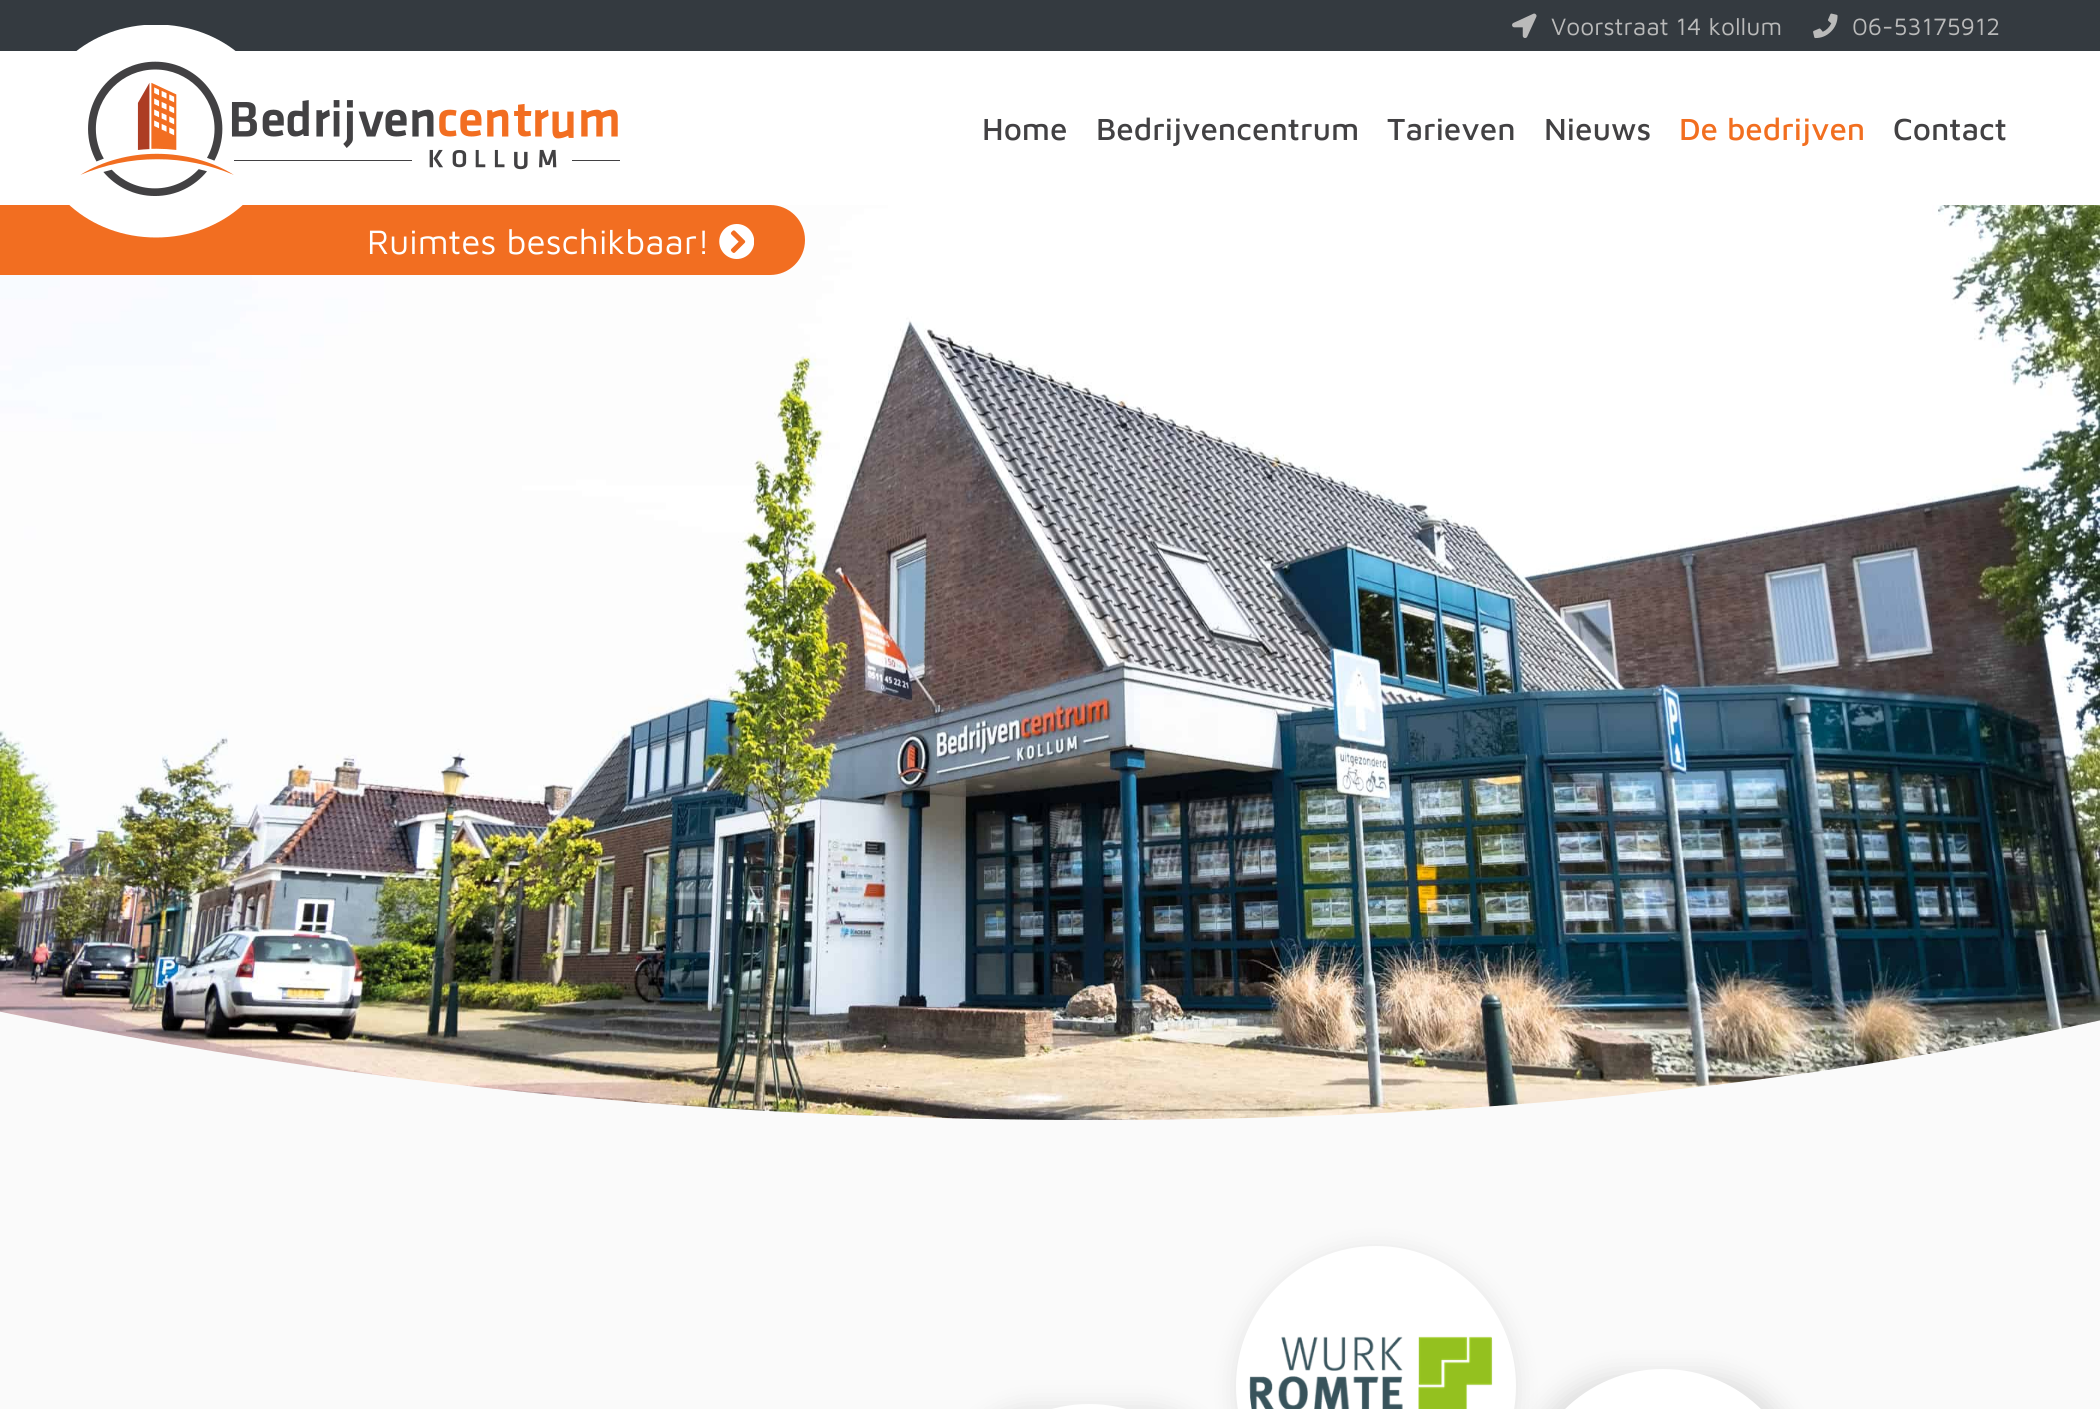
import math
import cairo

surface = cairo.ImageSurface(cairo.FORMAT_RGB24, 2100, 1409)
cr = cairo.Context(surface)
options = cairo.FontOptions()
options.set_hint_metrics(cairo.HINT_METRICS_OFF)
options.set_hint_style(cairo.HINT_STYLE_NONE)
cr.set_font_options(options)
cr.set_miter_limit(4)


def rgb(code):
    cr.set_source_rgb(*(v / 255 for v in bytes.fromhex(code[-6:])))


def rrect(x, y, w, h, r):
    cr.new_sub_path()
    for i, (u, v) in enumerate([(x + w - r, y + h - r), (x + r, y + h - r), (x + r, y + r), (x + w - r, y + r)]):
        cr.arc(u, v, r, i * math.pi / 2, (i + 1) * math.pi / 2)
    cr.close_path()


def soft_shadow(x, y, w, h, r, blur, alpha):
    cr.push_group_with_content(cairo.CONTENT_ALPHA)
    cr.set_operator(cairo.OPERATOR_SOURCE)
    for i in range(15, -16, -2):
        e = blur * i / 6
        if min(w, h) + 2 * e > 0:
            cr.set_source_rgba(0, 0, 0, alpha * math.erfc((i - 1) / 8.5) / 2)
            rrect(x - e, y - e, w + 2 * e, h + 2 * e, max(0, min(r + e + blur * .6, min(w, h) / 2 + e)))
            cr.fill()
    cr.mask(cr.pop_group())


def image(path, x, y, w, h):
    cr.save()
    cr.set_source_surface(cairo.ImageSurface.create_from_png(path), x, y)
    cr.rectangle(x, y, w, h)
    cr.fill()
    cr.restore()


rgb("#fafafa")
cr.paint()
rgb("#343a40")
cr.rectangle(0, 0, 2100, 51)
cr.fill()
image("img/1.png", 1512, 13, 25, 25)
image("img/2.png", 1813, 13, 25, 26)
rgb("#ffffff")
cr.rectangle(0, 51, 2100, 154)
cr.fill()
image("img/5.png", 0, 205, 2100, 915)
rgb("#f26e21")
cr.rectangle(0, 205, 700, 70)
cr.fill()
cr.save()
cr.rectangle(35, 25, 242, 213)
cr.clip()
rgb("#ffffff")
cr.new_path()
cr.move_to(156, 24.5)
cr.curve_to(222.5, 24.5, 276.5, 72, 276.5, 131)
cr.curve_to(276.5, 190, 222.5, 237.5, 156, 237.5)
cr.curve_to(89.5, 237.5, 35.5, 190, 35.5, 131)
cr.curve_to(35.5, 72, 89.5, 24.5, 156, 24.5)
cr.close_path()
cr.fill()
cr.restore()
image("img/3.png", 80, 61, 540, 135)
cr.new_path()
cr.move_to(700, 205)
cr.line_to(770, 205)
cr.curve_to(789.5, 205, 805, 220.5, 805, 240)
cr.curve_to(805, 259.5, 789.5, 275, 770, 275)
cr.line_to(700, 275)
cr.close_path()
cr.fill()
image("img/4.png", 719, 224, 35, 35)
rgb("#fafafa")
cr.set_fill_rule(cairo.FILL_RULE_EVEN_ODD)
cr.new_path()
cr.move_to(-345, 1197)
cr.line_to(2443, 1199)
cr.line_to(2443, 926)
cr.curve_to(2059, 1055, 1610, 1120, 1095, 1120)
cr.curve_to(580, 1120, 100, 1055, -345, 926)
cr.close_path()
cr.fill()
rgb("#000000")
soft_shadow(1236, 1250, 280, 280, 140, 12, 0.1)
rgb("#ffffff")
cr.arc(1376, 1386, 140, 0, 2 * math.pi)
cr.fill()
image("img/6.png", 1249, 1336, 244, 73)
rgb("#000000")
soft_shadow(949, 1407, 280, 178, 140, 12, 0.1)
rgb("#ffffff")
rrect(949, 1404, 280, 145, 140)
cr.fill()
rgb("#000000")
soft_shadow(1523, 1372, 280, 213, 140, 12, 0.1)
rgb("#ffffff")
rrect(1523, 1369, 280, 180, 140)
cr.fill()
cr.select_font_face("Maven Pro")
cr.set_font_size(24.5)
rgb("#bababa")
cr.move_to(1551, 35)
cr.show_text("Voorstraat 14 kollum")
cr.move_to(1852, 35)
cr.show_text("06-53175912")
cr.select_font_face("Maven Pro Medium")
cr.set_font_size(31.5)
rgb("#424143")
for x, y, s in [
    (982, 140, "Home"),
    (1096, 140, "Bedrijvencentrum"),
    (1387, 140, "Tarieven"),
    (1544, 140, "Nieuws"),
]:
    cr.move_to(x, y)
    cr.show_text(s)
rgb("#f26f20")
cr.move_to(1679, 140)
cr.show_text("De bedrijven")
rgb("#424143")
cr.move_to(1893, 140)
cr.show_text("Contact")
cr.select_font_face("Maven Pro")
cr.set_font_size(35)
rgb("#ffffff")
cr.move_to(367, 254)
cr.show_text("Ruimtes beschikbaar!")
surface.write_to_png("page.png")
